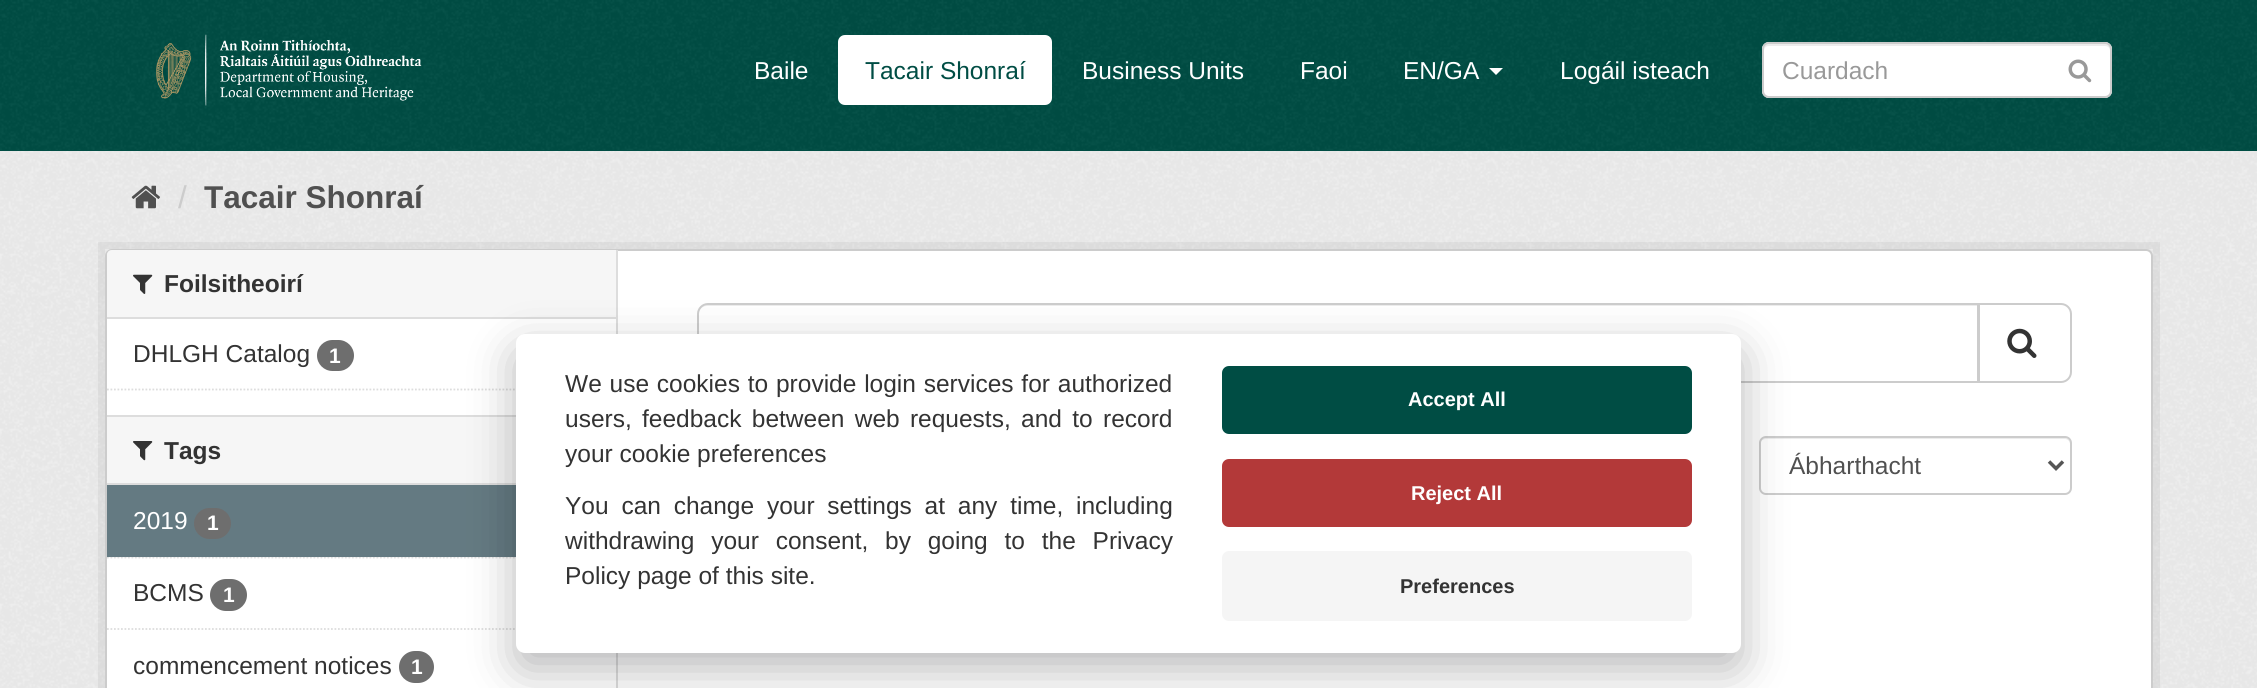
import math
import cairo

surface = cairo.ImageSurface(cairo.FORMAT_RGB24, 2257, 688)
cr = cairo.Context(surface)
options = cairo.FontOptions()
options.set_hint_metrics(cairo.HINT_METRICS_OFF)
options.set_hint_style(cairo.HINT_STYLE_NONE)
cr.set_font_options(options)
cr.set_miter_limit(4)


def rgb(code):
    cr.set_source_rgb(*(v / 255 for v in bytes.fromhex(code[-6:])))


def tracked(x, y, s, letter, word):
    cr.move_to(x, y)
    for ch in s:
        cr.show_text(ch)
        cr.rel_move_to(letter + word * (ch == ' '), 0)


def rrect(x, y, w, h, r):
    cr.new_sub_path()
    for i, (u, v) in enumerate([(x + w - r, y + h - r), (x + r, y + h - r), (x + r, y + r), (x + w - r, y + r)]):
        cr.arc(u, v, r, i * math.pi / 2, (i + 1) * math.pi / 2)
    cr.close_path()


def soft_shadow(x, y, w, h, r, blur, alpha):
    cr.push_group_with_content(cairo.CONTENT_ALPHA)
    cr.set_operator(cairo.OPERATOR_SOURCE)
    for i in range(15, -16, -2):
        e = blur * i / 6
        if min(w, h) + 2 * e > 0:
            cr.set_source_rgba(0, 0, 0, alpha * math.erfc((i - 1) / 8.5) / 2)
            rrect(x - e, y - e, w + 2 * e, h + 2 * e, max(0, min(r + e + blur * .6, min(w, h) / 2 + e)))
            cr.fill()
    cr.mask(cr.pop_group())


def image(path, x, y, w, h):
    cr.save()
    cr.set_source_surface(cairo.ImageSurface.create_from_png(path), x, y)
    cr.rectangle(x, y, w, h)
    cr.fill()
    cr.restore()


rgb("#eeeeee")
cr.paint()
rgb("#004d44")
cr.rectangle(0, 0, 2257, 151)
cr.fill()
image("img/1.png", 0, 0, 2257, 150)
image("img/2.png", 156, 34, 266, 72)
rgb("#ffffff")
rrect(838, 35, 214, 70, 7)
cr.fill()
cr.new_path()
cr.move_to(1489, 68)
cr.line_to(1503, 68)
cr.line_to(1496, 75)
cr.close_path()
cr.fill()
rrect(1762, 42, 350, 56, 7)
cr.fill()
rgb("#ececec")
cr.new_path()
cr.move_to(1769, 46)
cr.line_to(2105, 46)
cr.curve_to(2108, 46, 2110, 48, 2110, 51)
cr.line_to(2110, 94)
cr.curve_to(2111, 93, 2111, 92, 2111, 91)
cr.line_to(2111, 49)
cr.curve_to(2111, 46, 2109, 44, 2106, 44)
cr.line_to(1769, 44)
cr.curve_to(1766, 44, 1764, 46, 1764, 49)
cr.line_to(1764, 51)
cr.curve_to(1764, 48, 1766, 46, 1769, 46)
cr.close_path()
cr.fill()
rrect(1763, 43, 348, 54, 6)
rgb("#cccccc")
cr.stroke()
image("img/3.png", 2068, 59, 24, 24)
image("img/4.png", 0, 151, 2257, 537)
image("img/5.png", 131, 185, 29, 24)
cr.rectangle(101.5, 245.5, 2055, 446)
cr.set_source_rgba(0, 0, 0, 0.05)
cr.set_line_width(7)
cr.stroke()
rgb("#ffffff")
rrect(106, 250, 2046, 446, 6)
cr.fill_preserve()
rgb("#cccccc")
cr.set_line_width(2)
cr.stroke()
rgb("#f6f6f6")
cr.new_path()
cr.move_to(112, 250)
cr.line_to(616, 250)
cr.line_to(616, 319)
cr.line_to(107, 319)
cr.line_to(107, 255)
cr.curve_to(107, 252, 109, 250, 112, 250)
cr.close_path()
cr.fill()
rgb("#dddddd")
cr.rectangle(107, 317, 509, 2)
cr.fill()
image("img/6.png", 133, 274, 20, 20)
rgb("#6e6e6e")
rrect(317, 340, 37, 31, 15.5)
cr.fill()
cr.new_path()
cr.move_to(107, 389.5)
cr.line_to(616, 389.5)
rgb("#dddddd")
cr.set_line_width(1.8)
cr.set_dash([1.75, 1.75])
cr.stroke()
for x, y, w, h, color in [
    (107, 417, 409, 66, "#f6f6f6"),
    (107, 415, 409, 2, "#dddddd"),
    (107, 483, 409, 2, "#dddddd"),
]:
    rgb(color)
    cr.rectangle(x, y, w, h)
    cr.fill()
image("img/7.png", 133, 441, 20, 20)
rgb("#f6f6f6")
cr.rectangle(108, 557, 408, 1)
cr.fill()
cr.new_path()
cr.move_to(107, 557.5)
cr.line_to(616, 557.5)
rgb("#dddddd")
cr.stroke()
rgb("#647a82")
cr.rectangle(107, 485, 409, 72)
cr.fill()
rgb("#6e6e6e")
rrect(194, 508, 37, 31, 15.5)
cr.fill()
cr.new_path()
cr.move_to(107, 629)
cr.line_to(616, 629)
rgb("#dddddd")
cr.stroke()
rgb("#6e6e6e")
rrect(210, 579, 37, 32, 16)
cr.fill()
rrect(399, 651, 35, 32, 16)
cr.fill()
rgb("#dddddd")
cr.rectangle(616, 250, 2, 438)
cr.fill()
rgb("#ececec")
cr.new_path()
cr.move_to(707, 306)
cr.line_to(1978, 306)
cr.line_to(1978, 305)
cr.line_to(707, 305)
cr.curve_to(702, 305, 698, 309, 698, 314)
cr.line_to(698, 315)
cr.curve_to(698, 310, 702, 306, 707, 306)
cr.close_path()
cr.fill()
cr.new_path()
cr.move_to(708, 304)
cr.line_to(1978, 304)
cr.line_to(1978, 382)
cr.line_to(708, 382)
cr.curve_to(702.5, 382, 698, 377.5, 698, 372)
cr.line_to(698, 314)
cr.curve_to(698, 308.5, 702.5, 304, 708, 304)
cr.close_path()
rgb("#cccccc")
cr.set_line_width(2)
cr.set_dash([])
cr.stroke()
rgb("#ffffff")
cr.new_path()
cr.move_to(1979, 304)
cr.line_to(2061, 304)
cr.curve_to(2066.5, 304, 2071, 308.5, 2071, 314)
cr.line_to(2071, 372)
cr.curve_to(2071, 377.5, 2066.5, 382, 2061, 382)
cr.line_to(1979, 382)
cr.close_path()
cr.fill_preserve()
rgb("#cccccc")
cr.stroke()
image("img/8.png", 2007, 328, 30, 30)
rgb("#ececec")
cr.new_path()
cr.move_to(1766, 439)
cr.line_to(2065, 439)
cr.curve_to(2068, 439, 2070, 442, 2070, 444)
cr.line_to(2070, 443)
cr.curve_to(2070, 440, 2068, 438, 2065, 438)
cr.line_to(1766, 438)
cr.curve_to(1764, 438, 1762, 439, 1761, 441)
cr.curve_to(1762, 440, 1764, 439, 1766, 439)
cr.close_path()
cr.fill()
rrect(1760, 437, 311, 57, 6)
rgb("#cccccc")
cr.stroke()
cr.new_path()
cr.move_to(2049, 461.5)
cr.line_to(2056, 468.5)
cr.line_to(2063, 461.5)
rgb("#555555")
cr.set_line_width(3.5)
cr.stroke()
rgb("#020203")
soft_shadow(516, 350, 1225, 319, 9, 23, 0.28)
rgb("#ffffff")
rrect(516, 334, 1225, 319, 9)
cr.fill()
rgb("#004d44")
rrect(1222, 366, 470, 68, 7)
cr.fill()
rgb("#b33939")
rrect(1222, 459, 470, 68, 7)
cr.fill()
rgb("#f5f5f5")
rrect(1222, 551, 470, 70, 7)
cr.fill()
cr.select_font_face("Liberation Sans")
cr.set_font_size(24.5)
rgb("#ffffff")
cr.move_to(754, 79)
cr.show_text("Baile")
rgb("#004d44")
cr.move_to(865, 79)
cr.show_text("Tacair Shonraí")
rgb("#ffffff")
for x, y, s in [
    (1082, 79, "Business Units"),
    (1300, 79, "Faoi"),
    (1403, 79, "EN/GA"),
    (1560, 79, "Logáil isteach"),
]:
    cr.move_to(x, y)
    cr.show_text(s)
rgb("#999999")
cr.move_to(1782, 79)
cr.show_text("Cuardach")
cr.set_font_size(31.5)
rgb("#cccccc")
cr.move_to(178, 208)
cr.show_text("/")
cr.select_font_face("Liberation Sans", cairo.FONT_SLANT_NORMAL, cairo.FONT_WEIGHT_BOLD)
rgb("#505050")
cr.move_to(204, 208)
cr.show_text("Tacair Shonraí")
cr.set_font_size(24.5)
rgb("#333333")
cr.move_to(164, 292)
cr.show_text("Foilsitheoirí")
cr.select_font_face("Liberation Sans")
cr.move_to(133, 362)
cr.show_text("DHLGH Catalog")
cr.select_font_face("Liberation Sans", cairo.FONT_SLANT_NORMAL, cairo.FONT_WEIGHT_BOLD)
cr.set_font_size(21)
rgb("#ffffff")
cr.move_to(329, 363)
cr.show_text("1")
cr.set_font_size(24.5)
rgb("#333333")
cr.move_to(164, 459)
cr.show_text("Tags")
cr.select_font_face("Liberation Sans")
rgb("#ffffff")
cr.move_to(133, 529)
cr.show_text("2019")
cr.select_font_face("Liberation Sans", cairo.FONT_SLANT_NORMAL, cairo.FONT_WEIGHT_BOLD)
cr.set_font_size(21)
cr.move_to(207, 530)
cr.show_text("1")
cr.select_font_face("Liberation Sans")
cr.set_font_size(24.5)
rgb("#333333")
cr.move_to(133, 601)
cr.show_text("BCMS")
cr.select_font_face("Liberation Sans", cairo.FONT_SLANT_NORMAL, cairo.FONT_WEIGHT_BOLD)
cr.set_font_size(21)
rgb("#ffffff")
cr.move_to(223, 602)
cr.show_text("1")
cr.select_font_face("Liberation Sans")
cr.set_font_size(24.5)
rgb("#333333")
cr.move_to(133, 674)
cr.show_text("commencement notices")
cr.select_font_face("Liberation Sans", cairo.FONT_SLANT_NORMAL, cairo.FONT_WEIGHT_BOLD)
cr.set_font_size(21)
rgb("#ffffff")
cr.move_to(411, 674)
cr.show_text("1")
cr.select_font_face("Liberation Sans")
cr.set_font_size(24.5)
rgb("#505050")
cr.move_to(1789, 474)
cr.show_text("Ábharthacht")
rgb("#333333")
tracked(565, 392, "We use cookies to provide login services for authorized", 0, 1)
tracked(565, 427, "users, feedback between web requests, and to record", 0, 3.5)
cr.move_to(565, 462)
cr.show_text("your cookie preferences")
tracked(565, 514, "You can change your settings at any time, including", 0, 6)
tracked(565, 549, "withdrawing your consent, by going to the Privacy", 0, 10)
cr.move_to(565, 584)
cr.show_text("Policy page of this site.")
cr.select_font_face("Liberation Sans", cairo.FONT_SLANT_NORMAL, cairo.FONT_WEIGHT_BOLD)
cr.set_font_size(20)
rgb("#ffffff")
cr.move_to(1408, 406)
cr.show_text("Accept All")
cr.move_to(1411, 500)
cr.show_text("Reject All")
rgb("#333333")
cr.move_to(1400, 593)
cr.show_text("Preferences")
surface.write_to_png("page.png")
